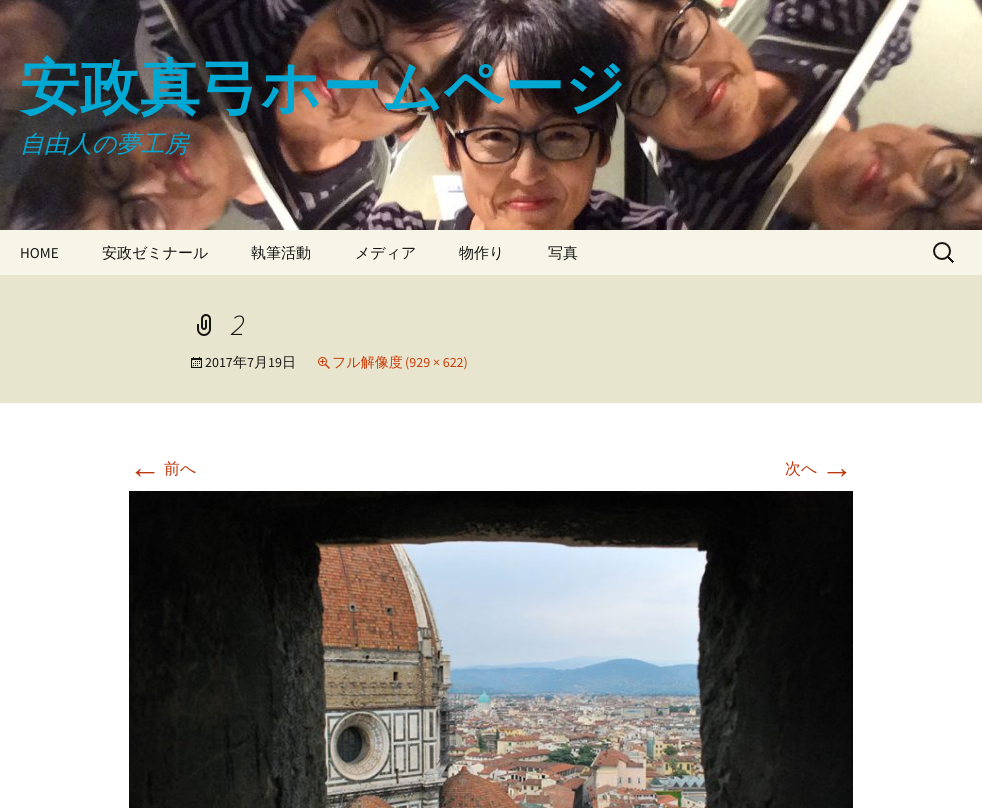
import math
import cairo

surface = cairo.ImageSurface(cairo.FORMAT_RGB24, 982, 808)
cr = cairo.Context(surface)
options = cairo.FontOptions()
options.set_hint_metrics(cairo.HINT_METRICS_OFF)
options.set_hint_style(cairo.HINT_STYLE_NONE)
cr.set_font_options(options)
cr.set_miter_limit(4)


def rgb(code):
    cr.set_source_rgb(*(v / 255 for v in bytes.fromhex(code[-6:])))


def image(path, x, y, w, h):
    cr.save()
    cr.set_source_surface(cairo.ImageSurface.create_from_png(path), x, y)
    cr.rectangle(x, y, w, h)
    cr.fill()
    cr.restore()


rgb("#ffffff")
cr.paint()
image("img/1.png", 0, 0, 982, 230)
rgb("#f7f5e7")
cr.rectangle(0, 230, 982, 45)
cr.fill()
image("img/2.png", 933, 242, 21, 21)
rgb("#e8e5ce")
cr.rectangle(0, 275, 982, 128)
cr.fill()
image("img/3.png", 197, 314, 14, 22)
image("img/4.png", 191, 357, 11, 11)
image("img/5.png", 318, 357, 12, 12)
image("img/6.png", 129, 491, 724, 317)
cr.select_font_face("WenQuanYi Zen Hei", cairo.FONT_SLANT_NORMAL, cairo.FONT_WEIGHT_BOLD)
cr.set_font_size(60)
rgb("#00a9d3")
cr.move_to(20, 108)
cr.show_text("安政真弓ホームページ")
cr.select_font_face("WenQuanYi Zen Hei Medium", cairo.FONT_SLANT_ITALIC)
cr.set_font_size(24)
cr.move_to(20, 152)
cr.show_text("自由人の夢工房")
cr.select_font_face("Source Sans Pro")
cr.set_font_size(15)
rgb("#141412")
cr.move_to(20, 258)
cr.show_text("HOME")
cr.select_font_face("WenQuanYi Zen Hei Medium")
for x, y, s in [
    (102, 258, "安政ゼミナール"),
    (251, 258, "執筆活動"),
    (355, 258, "メディア"),
    (459, 258, "物作り"),
    (548, 258, "写真"),
]:
    cr.move_to(x, y)
    cr.show_text(s)
cr.select_font_face("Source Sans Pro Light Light", cairo.FONT_SLANT_ITALIC)
cr.set_font_size(30)
cr.move_to(231, 335)
cr.show_text("2")
cr.select_font_face("Source Sans Pro")
cr.set_font_size(14)
cr.move_to(205, 367)
cr.show_text("2017")
cr.select_font_face("WenQuanYi Zen Hei Medium")
cr.move_to(233, 367)
cr.show_text("年")
cr.select_font_face("Source Sans Pro")
cr.move_to(247, 367)
cr.show_text("7")
cr.select_font_face("WenQuanYi Zen Hei Medium")
cr.move_to(254, 367)
cr.show_text("月")
cr.select_font_face("Source Sans Pro")
cr.move_to(268, 367)
cr.show_text("19")
cr.select_font_face("WenQuanYi Zen Hei Medium")
cr.move_to(282, 367)
cr.show_text("日")
rgb("#ca3c08")
cr.move_to(332, 367)
cr.show_text("フル解像度")
cr.select_font_face("Source Sans Pro")
cr.move_to(405, 367)
cr.show_text("(929 × 622)")
cr.select_font_face("Liberation Sans")
cr.set_font_size(32)
rgb("#bc360a")
cr.move_to(129, 478)
cr.show_text("←")
cr.select_font_face("WenQuanYi Zen Hei Medium")
cr.set_font_size(16)
cr.move_to(164, 474)
cr.show_text("前へ")
cr.move_to(785, 474)
cr.show_text("次へ")
cr.select_font_face("Liberation Sans")
cr.set_font_size(32)
cr.move_to(821, 478)
cr.show_text("→")
surface.write_to_png("page.png")
